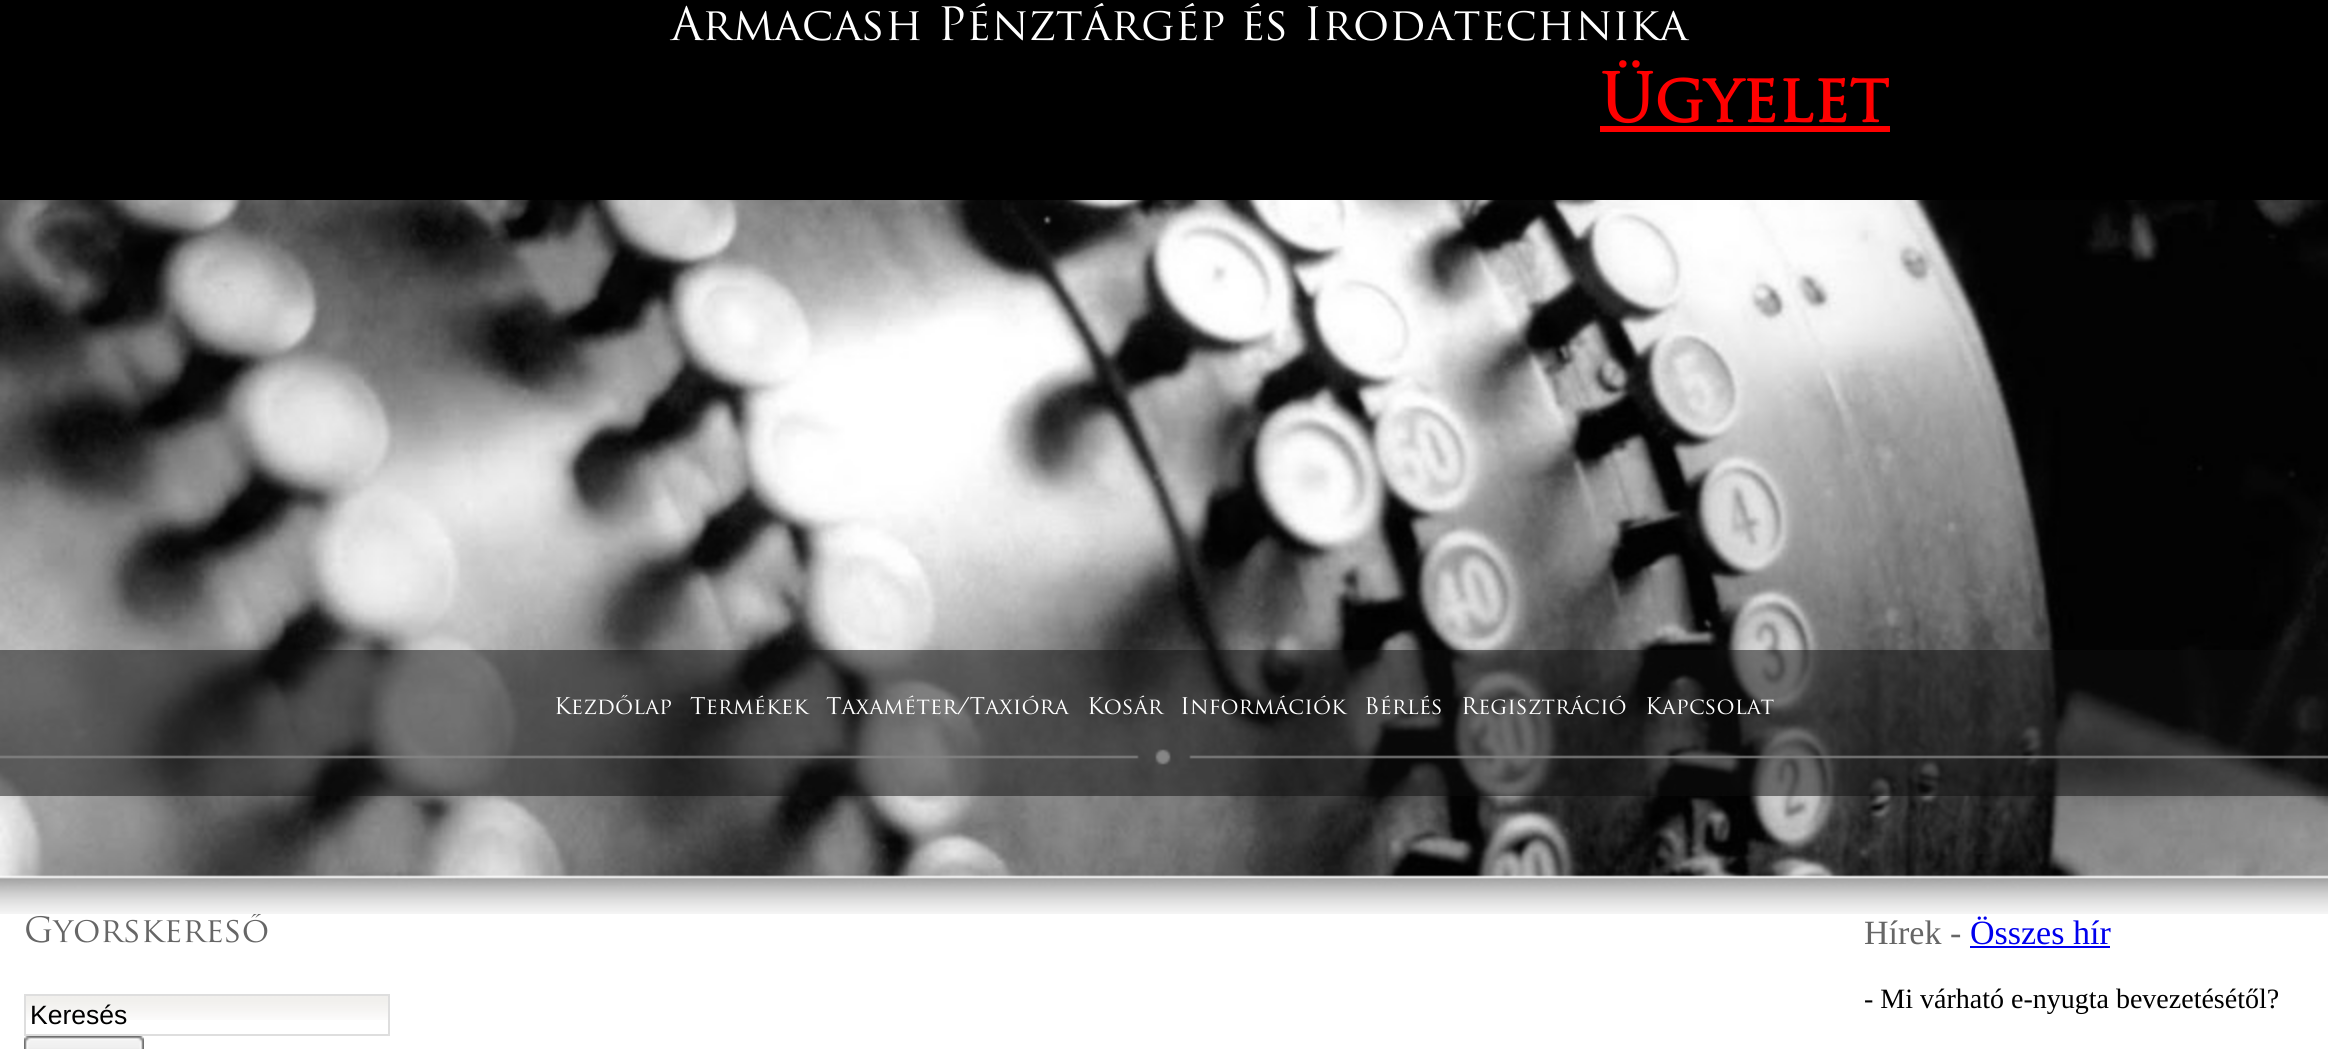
import math
import cairo

surface = cairo.ImageSurface(cairo.FORMAT_RGB24, 2328, 1049)
cr = cairo.Context(surface)
options = cairo.FontOptions()
options.set_hint_metrics(cairo.HINT_METRICS_OFF)
options.set_hint_style(cairo.HINT_STYLE_NONE)
cr.set_font_options(options)
cr.set_miter_limit(4)


def rgb(code):
    cr.set_source_rgb(*(v / 255 for v in bytes.fromhex(code[-6:])))


def image(path, x, y, w, h):
    cr.save()
    cr.set_source_surface(cairo.ImageSurface.create_from_png(path), x, y)
    cr.rectangle(x, y, w, h)
    cr.fill()
    cr.restore()


rgb("#ffffff")
cr.paint()
rgb("#000000")
cr.rectangle(0, 0, 2328, 200)
cr.fill()
rgb("#ff0000")
cr.rectangle(1600, 126, 290, 6)
cr.fill()
image("img/1.png", 0, 200, 2328, 714)
image("img/2.png", 0, 650, 2328, 146)
image("img/3.png", 26, 996, 362, 24)
cr.rectangle(25, 995, 364, 40)
rgb("#dedede")
cr.stroke()
image("img/4.png", 24, 1036, 120, 13)
rgb("#0000ee")
cr.rectangle(1970, 946, 140, 2)
cr.fill()
cr.select_font_face("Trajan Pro")
cr.set_font_size(44.8)
rgb("#ffffff")
cr.move_to(671, 40)
cr.show_text("Armacash Pénztárgép és Irodatechnika")
cr.select_font_face("Trajan Pro", cairo.FONT_SLANT_NORMAL, cairo.FONT_WEIGHT_BOLD)
cr.set_font_size(65.5)
rgb("#ff0000")
cr.move_to(1600, 122)
cr.show_text("Ügyelet")
cr.select_font_face("Trajan Pro")
cr.set_font_size(22.4)
rgb("#ffffff")
for x, y, s in [
    (554, 714, "Kezdőlap"),
    (690, 714, "Termékek"),
    (826, 714, "Taxaméter/Taxióra"),
    (1087, 714, "Kosár"),
    (1180, 714, "Információk"),
    (1364, 714, "Bérlés"),
    (1461, 714, "Regisztráció"),
    (1645, 714, "Kapcsolat"),
]:
    cr.move_to(x, y)
    cr.show_text(s)
cr.save()
cr.rectangle(24, 914, 440, 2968)
cr.clip()
cr.set_font_size(34)
rgb("#666666")
cr.move_to(24, 942)
cr.show_text("Gyorskereső")
cr.restore()
cr.select_font_face("Liberation Sans")
cr.set_font_size(26.5)
rgb("#000000")
cr.move_to(30, 1024)
cr.show_text("Keresés")
cr.select_font_face("Liberation Serif")
cr.set_font_size(34)
rgb("#666666")
cr.move_to(1864, 944)
cr.show_text("Hírek -")
rgb("#0000ee")
cr.move_to(1970, 944)
cr.show_text("Összes hír")
cr.set_font_size(28)
rgb("#000000")
cr.move_to(1864, 1008)
cr.show_text("- Mi várható e-nyugta bevezetésétől?")
surface.write_to_png("page.png")
